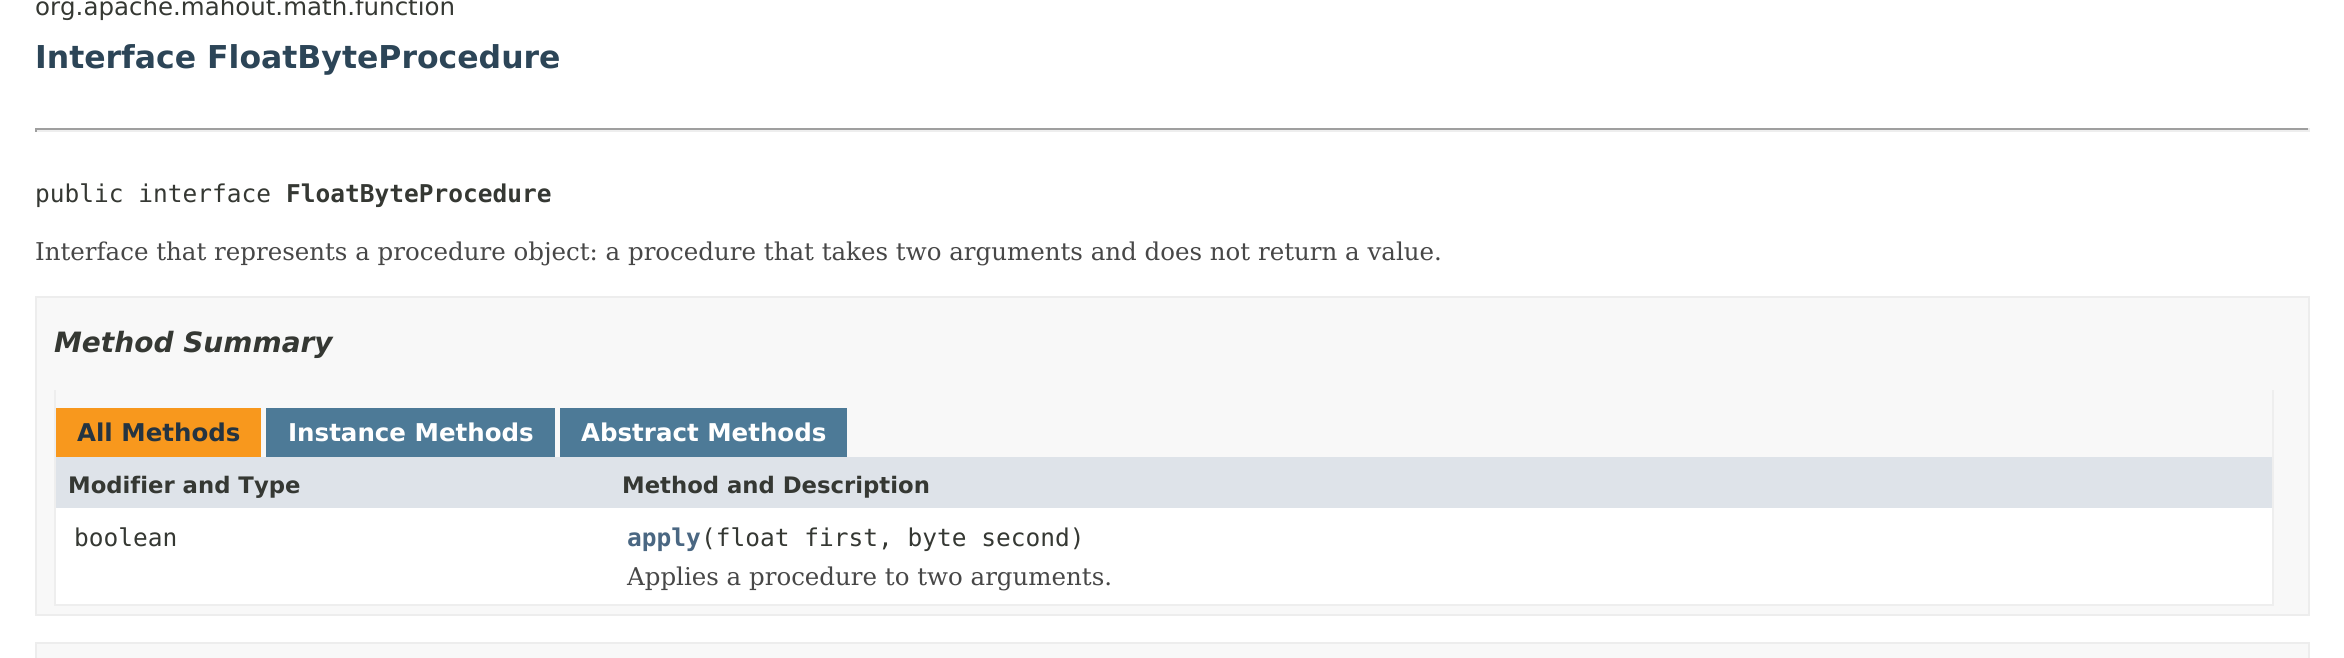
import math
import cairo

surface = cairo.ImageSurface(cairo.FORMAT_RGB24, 2344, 658)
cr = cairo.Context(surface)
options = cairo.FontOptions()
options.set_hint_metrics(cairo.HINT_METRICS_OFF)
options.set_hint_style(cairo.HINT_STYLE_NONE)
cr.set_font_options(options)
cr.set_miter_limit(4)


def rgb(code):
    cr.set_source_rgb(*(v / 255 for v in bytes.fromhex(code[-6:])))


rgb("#ffffff")
cr.paint()
for x, y, w, h, color in [
    (35, 128, 2275, 2, "#9f9f9f"),
    (2308, 128, 2, 4, "#eeeeee"),
    (35, 130, 2275, 2, "#eeeeee"),
    (35, 128, 2, 4, "#9f9f9f"),
]:
    rgb(color)
    cr.rectangle(x, y, w, h)
    cr.fill()
rgb("#f8f8f8")
cr.rectangle(36, 297, 2273, 318)
cr.fill_preserve()
rgb("#ededed")
cr.stroke()
for x, y, w, h, color in [
    (2272, 390, 2, 216, "#eeeeee"),
    (54, 604, 2219, 2, "#eeeeee"),
    (54, 390, 2, 216, "#eeeeee"),
    (56, 408, 205, 49, "#f8981d"),
    (266, 408, 289, 49, "#4d7a97"),
    (560, 408, 287, 49, "#4d7a97"),
    (56, 457, 2216, 51, "#dee3e9"),
    (56, 508, 2216, 96, "#ffffff"),
]:
    rgb(color)
    cr.rectangle(x, y, w, h)
    cr.fill()
rgb("#f8f8f8")
cr.rectangle(36, 643, 2273, 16)
cr.fill_preserve()
rgb("#ededed")
cr.stroke()
cr.select_font_face("DejaVu Sans")
cr.set_font_size(24.5)
rgb("#353833")
cr.move_to(35, 15)
cr.show_text("org.apache.mahout.math.function")
cr.select_font_face("DejaVu Sans", cairo.FONT_SLANT_NORMAL, cairo.FONT_WEIGHT_BOLD)
cr.set_font_size(31.5)
rgb("#2c4557")
cr.move_to(35, 68)
cr.show_text("Interface FloatByteProcedure")
cr.select_font_face("DejaVu Sans Mono")
cr.set_font_size(24.5)
rgb("#353833")
cr.move_to(35, 202)
cr.show_text("public interface")
cr.select_font_face("DejaVu Sans Mono", cairo.FONT_SLANT_NORMAL, cairo.FONT_WEIGHT_BOLD)
cr.move_to(286, 202)
cr.show_text("FloatByteProcedure")
cr.select_font_face("DejaVu Serif")
rgb("#474747")
cr.move_to(35, 260)
cr.show_text("Interface that represents a procedure object: a procedure that takes two arguments and does not return a value.")
cr.select_font_face("DejaVu Sans", cairo.FONT_SLANT_ITALIC, cairo.FONT_WEIGHT_BOLD)
cr.set_font_size(28)
rgb("#353833")
cr.move_to(54, 352)
cr.show_text("Method Summary")
cr.select_font_face("DejaVu Sans", cairo.FONT_SLANT_NORMAL, cairo.FONT_WEIGHT_BOLD)
cr.set_font_size(24.5)
rgb("#253441")
cr.move_to(77, 441)
cr.show_text("All Methods")
rgb("#ffffff")
cr.move_to(288, 441)
cr.show_text("Instance Methods")
cr.move_to(581, 441)
cr.show_text("Abstract Methods")
cr.set_font_size(22.75)
rgb("#353833")
cr.move_to(68, 493)
cr.show_text("Modifier and Type")
cr.move_to(622, 493)
cr.show_text("Method and Description")
cr.select_font_face("DejaVu Sans Mono")
cr.set_font_size(24.5)
cr.move_to(74, 546)
cr.show_text("boolean")
cr.select_font_face("DejaVu Sans Mono", cairo.FONT_SLANT_NORMAL, cairo.FONT_WEIGHT_BOLD)
rgb("#4a6782")
cr.move_to(627, 546)
cr.show_text("apply")
cr.select_font_face("DejaVu Sans Mono")
rgb("#353833")
cr.move_to(701, 546)
cr.show_text("(float first, byte second)")
cr.select_font_face("DejaVu Serif")
rgb("#474747")
cr.move_to(627, 585)
cr.show_text("Applies a procedure to two arguments.")
surface.write_to_png("page.png")
